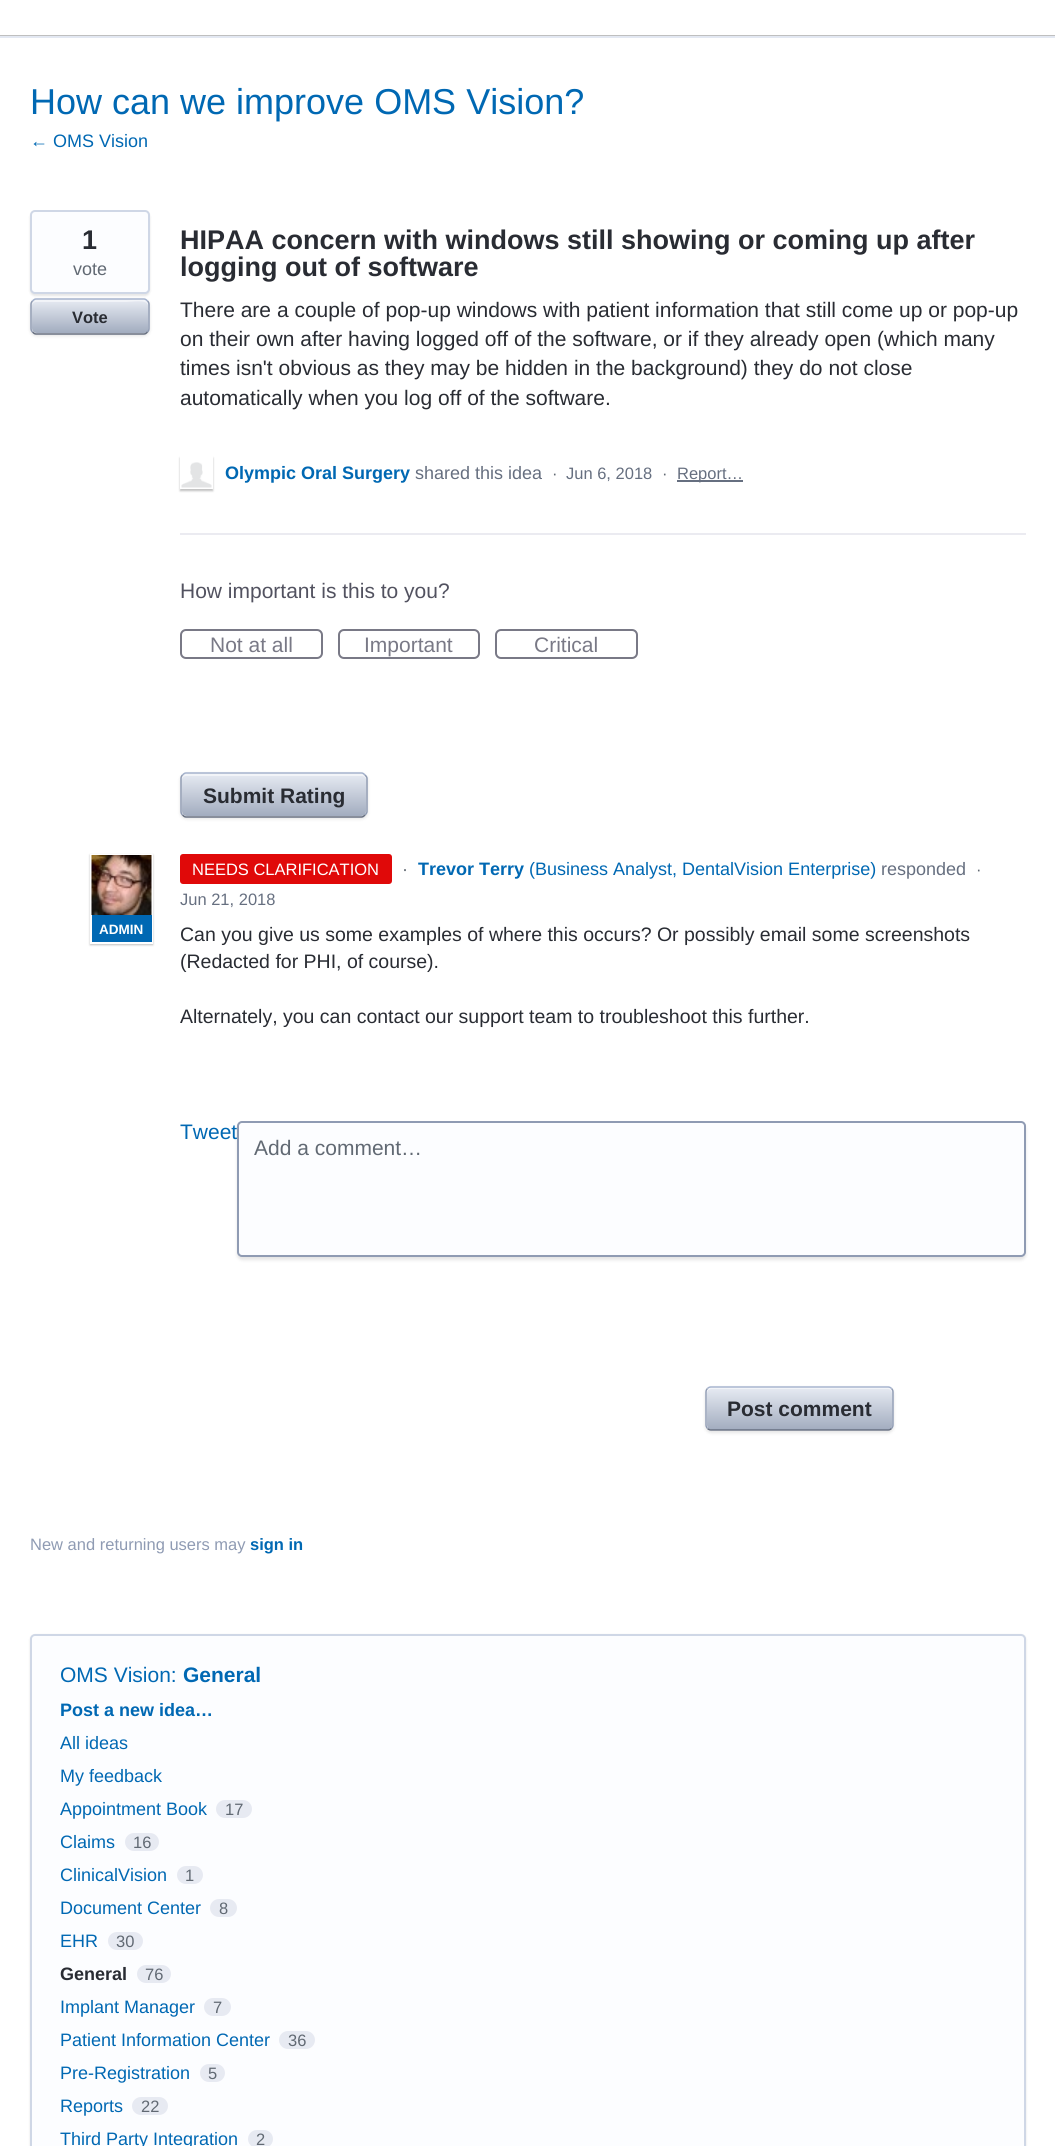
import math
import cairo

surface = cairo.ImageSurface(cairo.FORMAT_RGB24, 1055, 2146)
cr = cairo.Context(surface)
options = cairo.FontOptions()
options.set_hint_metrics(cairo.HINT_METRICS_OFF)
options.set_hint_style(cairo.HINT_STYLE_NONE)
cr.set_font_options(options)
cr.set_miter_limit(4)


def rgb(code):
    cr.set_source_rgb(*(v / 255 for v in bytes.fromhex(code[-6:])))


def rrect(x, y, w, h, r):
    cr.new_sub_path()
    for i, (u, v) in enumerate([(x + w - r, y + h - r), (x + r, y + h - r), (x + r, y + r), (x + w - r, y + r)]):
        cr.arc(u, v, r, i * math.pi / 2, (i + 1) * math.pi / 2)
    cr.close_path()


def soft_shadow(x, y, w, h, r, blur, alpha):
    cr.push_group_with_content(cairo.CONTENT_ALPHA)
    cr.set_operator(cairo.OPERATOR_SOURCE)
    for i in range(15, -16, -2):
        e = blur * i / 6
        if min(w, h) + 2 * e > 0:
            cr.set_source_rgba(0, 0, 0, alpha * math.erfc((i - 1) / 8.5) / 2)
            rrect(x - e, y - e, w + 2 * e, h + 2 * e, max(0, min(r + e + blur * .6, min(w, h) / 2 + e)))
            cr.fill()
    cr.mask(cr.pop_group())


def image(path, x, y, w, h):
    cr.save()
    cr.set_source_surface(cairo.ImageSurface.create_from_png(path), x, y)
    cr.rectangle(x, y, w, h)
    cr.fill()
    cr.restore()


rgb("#ffffff")
cr.paint()
rgb("#bfbfbf")
cr.rectangle(0, 35, 1055, 1)
cr.fill()
rgb("#e3e8f2")
cr.rectangle(0, 36, 1055, 2)
cr.fill()
rgb("#000000")
soft_shadow(30, 212, 120, 84, 5, 1, 0.1)
rgb("#fcfdff")
rrect(31, 211, 118, 82, 4)
cr.fill_preserve()
rgb("#cfd7e6")
cr.stroke()
rgb("#000000")
soft_shadow(30, 300, 120, 36, 6, 1.5, 0.1)
gradient = cairo.LinearGradient(32, 300, 32, 333)
gradient.add_color_stop_rgba(0, 0.902, 0.918, 0.949, 1)
gradient.add_color_stop_rgba(1, 0.635, 0.675, 0.749, 1)
cr.set_source(gradient)
rrect(32, 300, 117, 33, 5)
cr.fill()
cr.set_source_rgba(1, 1, 1, 0.5)
cr.new_path()
cr.move_to(36, 302)
cr.line_to(126, 302)
cr.curve_to(132, 302, 146, 299, 148, 305)
cr.line_to(148, 331)
cr.curve_to(150, 328, 149, 320, 149, 316)
cr.curve_to(149, 296, 150, 300, 126, 300)
cr.line_to(55, 300)
cr.curve_to(50, 300, 32, 295, 32, 306)
cr.curve_to(32, 304, 34, 302, 36, 302)
cr.close_path()
cr.fill()
cr.new_path()
cr.move_to(32.5, 301)
cr.curve_to(33.5, 300, 34.5, 299, 36, 299)
cr.line_to(144, 299)
cr.curve_to(145.5, 299, 146.5, 300, 147.5, 301)
rgb("#a3b1cc")
cr.set_line_width(1.5)
cr.stroke()
cr.new_path()
cr.move_to(147.5, 301)
cr.curve_to(148.5, 302, 149, 303, 149, 304.5)
cr.line_to(149, 328.5)
cr.curve_to(149, 330, 148.5, 331, 147.5, 332)
rgb("#8f9bb3")
cr.stroke()
cr.new_path()
cr.move_to(147.5, 332)
cr.curve_to(146.5, 333, 145.5, 334, 144, 334)
cr.line_to(36, 334)
cr.curve_to(34.5, 334, 33.5, 333, 32.5, 332)
rgb("#666f80")
cr.stroke()
cr.new_path()
cr.move_to(32.5, 332)
cr.curve_to(31.5, 331, 31, 330, 31, 328.5)
cr.line_to(31, 304.5)
cr.curve_to(31, 303, 31.5, 302, 32.5, 301)
rgb("#8f9bb3")
cr.stroke()
cr.save()
cr.set_fill_rule(cairo.FILL_RULE_EVEN_ODD)
cr.new_path()
cr.move_to(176, 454)
cr.line_to(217, 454)
cr.line_to(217, 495)
cr.line_to(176, 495)
cr.close_path()
cr.move_to(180, 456)
cr.line_to(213, 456)
cr.line_to(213, 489)
cr.line_to(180, 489)
cr.close_path()
cr.clip()
rgb("#000000")
soft_shadow(180, 458, 33, 33, 0, 1, 0.25)
cr.restore()
image("img/1.png", 181, 462, 31, 26)
rgb("#666f80")
cr.rectangle(677, 480, 66, 2)
cr.fill()
rgb("#ebebf1")
cr.rectangle(180, 533, 846, 2)
cr.fill()
rrect(181, 630, 141, 28, 5)
rgb("#797986")
cr.set_line_width(2)
cr.stroke()
rrect(339, 630, 140, 28, 5)
cr.stroke()
rrect(496, 630, 141, 28, 5)
cr.stroke()
rgb("#000000")
soft_shadow(180, 774, 188, 45, 6, 1.5, 0.1)
gradient = cairo.LinearGradient(182, 774, 182, 816)
gradient.add_color_stop_rgba(0, 0.902, 0.918, 0.949, 1)
gradient.add_color_stop_rgba(1, 0.635, 0.675, 0.749, 1)
cr.set_source(gradient)
rrect(182, 774, 184, 42, 5)
cr.fill()
cr.set_source_rgba(1, 1, 1, 0.5)
cr.new_path()
cr.move_to(186, 776)
cr.line_to(362, 776)
cr.curve_to(364, 776, 366, 778, 366, 780)
cr.curve_to(366, 777, 365, 775, 362, 774)
cr.line_to(186, 774)
cr.curve_to(183, 775, 182, 777, 182, 780)
cr.curve_to(182, 778, 184, 776, 186, 776)
cr.close_path()
cr.fill()
cr.new_path()
cr.move_to(182.5, 775)
cr.curve_to(183.5, 774, 184.5, 773, 186, 773)
cr.line_to(361.5, 773)
cr.curve_to(363, 773, 364, 774, 365, 775)
rgb("#a3b1cc")
cr.set_line_width(1.5)
cr.stroke()
cr.new_path()
cr.move_to(365, 775)
cr.curve_to(366, 776, 367, 777, 367, 778.5)
cr.line_to(367, 811.5)
cr.curve_to(367, 813, 366, 814, 365, 815)
rgb("#8f9bb3")
cr.stroke()
cr.new_path()
cr.move_to(365, 815)
cr.curve_to(364, 816, 363, 817, 361.5, 817)
cr.line_to(186, 817)
cr.curve_to(184.5, 817, 183.5, 816, 182.5, 815)
rgb("#666f80")
cr.stroke()
cr.new_path()
cr.move_to(182.5, 815)
cr.curve_to(181.5, 814, 181, 813, 181, 811.5)
cr.line_to(181, 778.5)
cr.curve_to(181, 777, 181.5, 776, 182.5, 775)
rgb("#8f9bb3")
cr.stroke()
rgb("#000000")
soft_shadow(90, 855, 63, 90, 0, 1, 0.25)
cr.rectangle(91, 855, 61, 88)
rgb("#ffffff")
cr.set_line_width(2)
cr.stroke()
image("img/2.png", 91, 855, 61, 60)
rgb("#0068b3")
cr.rectangle(92, 915, 60, 27)
cr.fill()
rgb("#e00909")
rrect(180, 854, 212, 30, 3)
cr.fill()
rgb("#000000")
soft_shadow(237, 1124, 789, 136, 5, 1.5, 0.1)
rgb("#fcfdff")
rrect(238, 1122, 787, 134, 4)
cr.fill_preserve()
rgb("#8f9bb3")
cr.stroke()
cr.save()
cr.set_fill_rule(cairo.FILL_RULE_EVEN_ODD)
cr.new_path()
cr.move_to(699, 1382)
cr.line_to(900, 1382)
cr.line_to(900, 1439)
cr.line_to(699, 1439)
cr.close_path()
cr.move_to(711, 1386)
cr.line_to(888, 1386)
cr.curve_to(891.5, 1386, 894, 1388.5, 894, 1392)
cr.line_to(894, 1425)
cr.curve_to(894, 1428.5, 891.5, 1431, 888, 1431)
cr.line_to(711, 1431)
cr.curve_to(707.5, 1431, 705, 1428.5, 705, 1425)
cr.line_to(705, 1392)
cr.curve_to(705, 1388.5, 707.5, 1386, 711, 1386)
cr.close_path()
cr.clip()
rgb("#000000")
soft_shadow(705, 1388, 189, 45, 6, 1.5, 0.1)
cr.restore()
gradient = cairo.LinearGradient(707, 1388, 707, 1430)
gradient.add_color_stop_rgba(0, 0.902, 0.918, 0.949, 1)
gradient.add_color_stop_rgba(1, 0.635, 0.675, 0.749, 1)
cr.set_source(gradient)
rrect(707, 1388, 186, 42, 5)
cr.fill()
cr.set_source_rgba(1, 1, 1, 0.5)
cr.new_path()
cr.move_to(711, 1389)
cr.line_to(888, 1389)
cr.curve_to(890, 1389, 892, 1391, 892, 1394)
cr.line_to(892, 1426)
cr.line_to(891, 1429)
cr.curve_to(892, 1428, 893, 1426, 893, 1425)
cr.line_to(893, 1393)
cr.curve_to(893, 1390, 891, 1388, 888, 1388)
cr.line_to(712, 1388)
cr.curve_to(710, 1388, 709, 1389, 708, 1390)
cr.close_path()
cr.fill()
cr.new_path()
cr.move_to(707.5, 1388.5)
cr.curve_to(708.5, 1387.5, 709.5, 1387, 711, 1387)
cr.line_to(888, 1387)
cr.curve_to(889.5, 1387, 890.5, 1387.5, 891.5, 1388.5)
rgb("#a3b1cc")
cr.set_line_width(1.5)
cr.stroke()
cr.new_path()
cr.move_to(891.5, 1388.5)
cr.curve_to(892.5, 1389.5, 893, 1390.5, 893, 1392)
cr.line_to(893, 1425)
cr.curve_to(893, 1426.5, 892.5, 1427.5, 891.5, 1428.5)
rgb("#8f9bb3")
cr.stroke()
cr.new_path()
cr.move_to(891.5, 1428.5)
cr.curve_to(890.5, 1429.5, 889.5, 1430, 888, 1430)
cr.line_to(711, 1430)
cr.curve_to(709.5, 1430, 708.5, 1429.5, 707.5, 1428.5)
rgb("#666f80")
cr.stroke()
cr.new_path()
cr.move_to(707.5, 1428.5)
cr.curve_to(706.5, 1427.5, 706, 1426.5, 706, 1425)
cr.line_to(706, 1392)
cr.curve_to(706, 1390.5, 706.5, 1389.5, 707.5, 1388.5)
rgb("#8f9bb3")
cr.stroke()
rgb("#000000")
soft_shadow(30, 1635, 996, 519, 5, 1, 0.1)
rgb("#fcfdff")
rrect(31, 1635, 994, 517, 4)
cr.fill_preserve()
rgb("#cfd7e6")
cr.set_line_width(2)
cr.stroke()
rgb("#e7eaf2")
rrect(216, 1800, 36, 18, 9)
cr.fill()
rrect(125, 1833, 34, 18, 9)
cr.fill()
rrect(177, 1866, 26, 18, 9)
cr.fill()
rrect(210, 1899, 27, 18, 9)
cr.fill()
rrect(108, 1932, 35, 18, 9)
cr.fill()
rrect(137, 1965, 34, 18, 9)
cr.fill()
rrect(204, 1998, 27, 18, 9)
cr.fill()
rrect(279, 2031, 36, 18, 9)
cr.fill()
rrect(200, 2064, 25, 18, 9)
cr.fill()
rrect(132, 2097, 36, 18, 9)
cr.fill()
rrect(248, 2130, 25, 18, 9)
cr.fill()
cr.select_font_face("Liberation Sans")
cr.set_font_size(36)
rgb("#0068b3")
cr.move_to(30, 114)
cr.show_text("How can we improve OMS Vision?")
cr.set_font_size(18)
cr.move_to(30, 147)
cr.show_text("← OMS Vision")
cr.select_font_face("Liberation Sans", cairo.FONT_SLANT_NORMAL, cairo.FONT_WEIGHT_BOLD)
cr.set_font_size(27)
rgb("#292c33")
cr.move_to(82, 249)
cr.show_text("1")
cr.select_font_face("Liberation Sans")
cr.set_font_size(18)
rgb("#616973")
cr.move_to(73, 275)
cr.show_text("vote")
cr.select_font_face("Liberation Sans", cairo.FONT_SLANT_NORMAL, cairo.FONT_WEIGHT_BOLD)
cr.set_font_size(16.5)
rgb("#292c33")
cr.move_to(72, 323)
cr.show_text("Vote")
cr.set_font_size(27)
cr.move_to(180, 249)
cr.show_text("HIPAA concern with windows still showing or coming up after")
cr.move_to(180, 276)
cr.show_text("logging out of software")
cr.select_font_face("Liberation Sans")
cr.set_font_size(21)
for x, y, s in [
    (180, 317, "There are a couple of pop-up windows with patient information that still come up or pop-up"),
    (180, 346, "on their own after having logged off of the software, or if they already open (which many"),
    (180, 375, "times isn't obvious as they may be hidden in the background) they do not close"),
    (180, 405, "automatically when you log off of the software."),
]:
    cr.move_to(x, y)
    cr.show_text(s)
cr.select_font_face("Liberation Sans", cairo.FONT_SLANT_NORMAL, cairo.FONT_WEIGHT_BOLD)
cr.set_font_size(18)
rgb("#0068b3")
cr.move_to(225, 479)
cr.show_text("Olympic Oral Surgery")
cr.select_font_face("Liberation Sans")
rgb("#666f80")
cr.move_to(415, 479)
cr.show_text("shared this idea")
cr.set_font_size(16.5)
rgb("#616973")
cr.move_to(552, 479)
cr.show_text("·")
rgb("#666f80")
cr.move_to(566, 479)
cr.show_text("Jun 6, 2018")
rgb("#616973")
cr.move_to(662, 479)
cr.show_text("·")
rgb("#666f80")
cr.move_to(677, 479)
cr.show_text("Report…")
cr.set_font_size(21)
rgb("#525260")
cr.move_to(180, 598)
cr.show_text("How important is this to you?")
rgb("#797986")
for x, y, s in [
    (210, 652, "Not at all"),
    (364, 652, "Important"),
    (534, 652, "Critical"),
]:
    cr.move_to(x, y)
    cr.show_text(s)
cr.select_font_face("Liberation Sans", cairo.FONT_SLANT_NORMAL, cairo.FONT_WEIGHT_BOLD)
rgb("#292c33")
cr.move_to(203, 803)
cr.show_text("Submit Rating")
cr.set_font_size(18)
rgb("#0068b3")
cr.move_to(418, 875)
cr.show_text("Trevor Terry")
cr.select_font_face("Liberation Sans")
cr.move_to(529, 875)
cr.show_text("(Business Analyst, DentalVision Enterprise)")
cr.select_font_face("Liberation Sans", cairo.FONT_SLANT_NORMAL, cairo.FONT_WEIGHT_BOLD)
cr.set_font_size(13.5)
rgb("#ffffff")
cr.move_to(99, 934)
cr.show_text("ADMIN")
cr.select_font_face("Liberation Sans")
cr.set_font_size(18)
rgb("#666f80")
cr.move_to(881, 875)
cr.show_text("responded")
cr.set_font_size(16.5)
rgb("#ffffff")
cr.move_to(192, 875)
cr.show_text("NEEDS CLARIFICATION")
cr.set_font_size(18)
rgb("#616973")
cr.move_to(402, 875)
cr.show_text("·")
cr.set_font_size(16.5)
cr.move_to(976, 875)
cr.show_text("·")
rgb("#666f80")
cr.move_to(180, 905)
cr.show_text("Jun 21, 2018")
cr.set_font_size(19.5)
rgb("#292c33")
for x, y, s in [
    (180, 941, "Can you give us some examples of where this occurs? Or possibly email some screenshots"),
    (180, 968, "(Redacted for PHI, of course)."),
    (180, 1023, "Alternately, you can contact our support team to troubleshoot this further."),
]:
    cr.move_to(x, y)
    cr.show_text(s)
cr.set_font_size(21)
rgb("#0068b3")
cr.move_to(180, 1139)
cr.show_text("Tweet")
rgb("#616973")
cr.move_to(254, 1155)
cr.show_text("Add a comment…")
cr.select_font_face("Liberation Sans", cairo.FONT_SLANT_NORMAL, cairo.FONT_WEIGHT_BOLD)
rgb("#292c33")
cr.move_to(727, 1416)
cr.show_text("Post comment")
cr.select_font_face("Liberation Sans")
cr.set_font_size(16.5)
rgb("#8f9bb3")
cr.move_to(30, 1550)
cr.show_text("New and returning users may")
cr.select_font_face("Liberation Sans", cairo.FONT_SLANT_NORMAL, cairo.FONT_WEIGHT_BOLD)
rgb("#0068b3")
cr.move_to(250, 1550)
cr.show_text("sign in")
cr.select_font_face("Liberation Sans")
cr.set_font_size(21)
cr.move_to(60, 1682)
cr.show_text("OMS Vision:")
cr.select_font_face("Liberation Sans", cairo.FONT_SLANT_NORMAL, cairo.FONT_WEIGHT_BOLD)
cr.move_to(183, 1682)
cr.show_text("General")
cr.set_font_size(18)
cr.move_to(60, 1716)
cr.show_text("Post a new idea…")
cr.select_font_face("Liberation Sans")
for x, y, s in [
    (60, 1749, "All ideas"),
    (60, 1782, "My feedback"),
    (60, 1815, "Appointment Book"),
]:
    cr.move_to(x, y)
    cr.show_text(s)
cr.set_font_size(16.5)
rgb("#616973")
cr.move_to(225, 1815)
cr.show_text("17")
cr.set_font_size(18)
rgb("#0068b3")
cr.move_to(60, 1848)
cr.show_text("Claims")
cr.set_font_size(16.5)
rgb("#616973")
cr.move_to(133, 1848)
cr.show_text("16")
cr.set_font_size(18)
rgb("#0068b3")
cr.move_to(60, 1881)
cr.show_text("ClinicalVision")
cr.set_font_size(16.5)
rgb("#616973")
cr.move_to(185, 1881)
cr.show_text("1")
cr.set_font_size(18)
rgb("#0068b3")
cr.move_to(60, 1914)
cr.show_text("Document Center")
cr.set_font_size(16.5)
rgb("#616973")
cr.move_to(219, 1914)
cr.show_text("8")
cr.set_font_size(18)
rgb("#0068b3")
cr.move_to(60, 1947)
cr.show_text("EHR")
cr.set_font_size(16.5)
rgb("#616973")
cr.move_to(116, 1947)
cr.show_text("30")
cr.select_font_face("Liberation Sans", cairo.FONT_SLANT_NORMAL, cairo.FONT_WEIGHT_BOLD)
cr.set_font_size(18)
rgb("#292c33")
cr.move_to(60, 1980)
cr.show_text("General")
cr.select_font_face("Liberation Sans")
cr.set_font_size(16.5)
rgb("#616973")
cr.move_to(145, 1980)
cr.show_text("76")
cr.set_font_size(18)
rgb("#0068b3")
cr.move_to(60, 2013)
cr.show_text("Implant Manager")
cr.set_font_size(16.5)
rgb("#616973")
cr.move_to(213, 2013)
cr.show_text("7")
cr.set_font_size(18)
rgb("#0068b3")
cr.move_to(60, 2046)
cr.show_text("Patient Information Center")
cr.set_font_size(16.5)
rgb("#616973")
cr.move_to(288, 2046)
cr.show_text("36")
cr.set_font_size(18)
rgb("#0068b3")
cr.move_to(60, 2079)
cr.show_text("Pre-Registration")
cr.set_font_size(16.5)
rgb("#616973")
cr.move_to(208, 2079)
cr.show_text("5")
cr.set_font_size(18)
rgb("#0068b3")
cr.move_to(60, 2112)
cr.show_text("Reports")
cr.set_font_size(16.5)
rgb("#616973")
cr.move_to(141, 2112)
cr.show_text("22")
cr.set_font_size(18)
rgb("#0068b3")
cr.move_to(60, 2145)
cr.show_text("Third Party Integration")
cr.set_font_size(16.5)
rgb("#616973")
cr.move_to(256, 2145)
cr.show_text("2")
surface.write_to_png("page.png")
